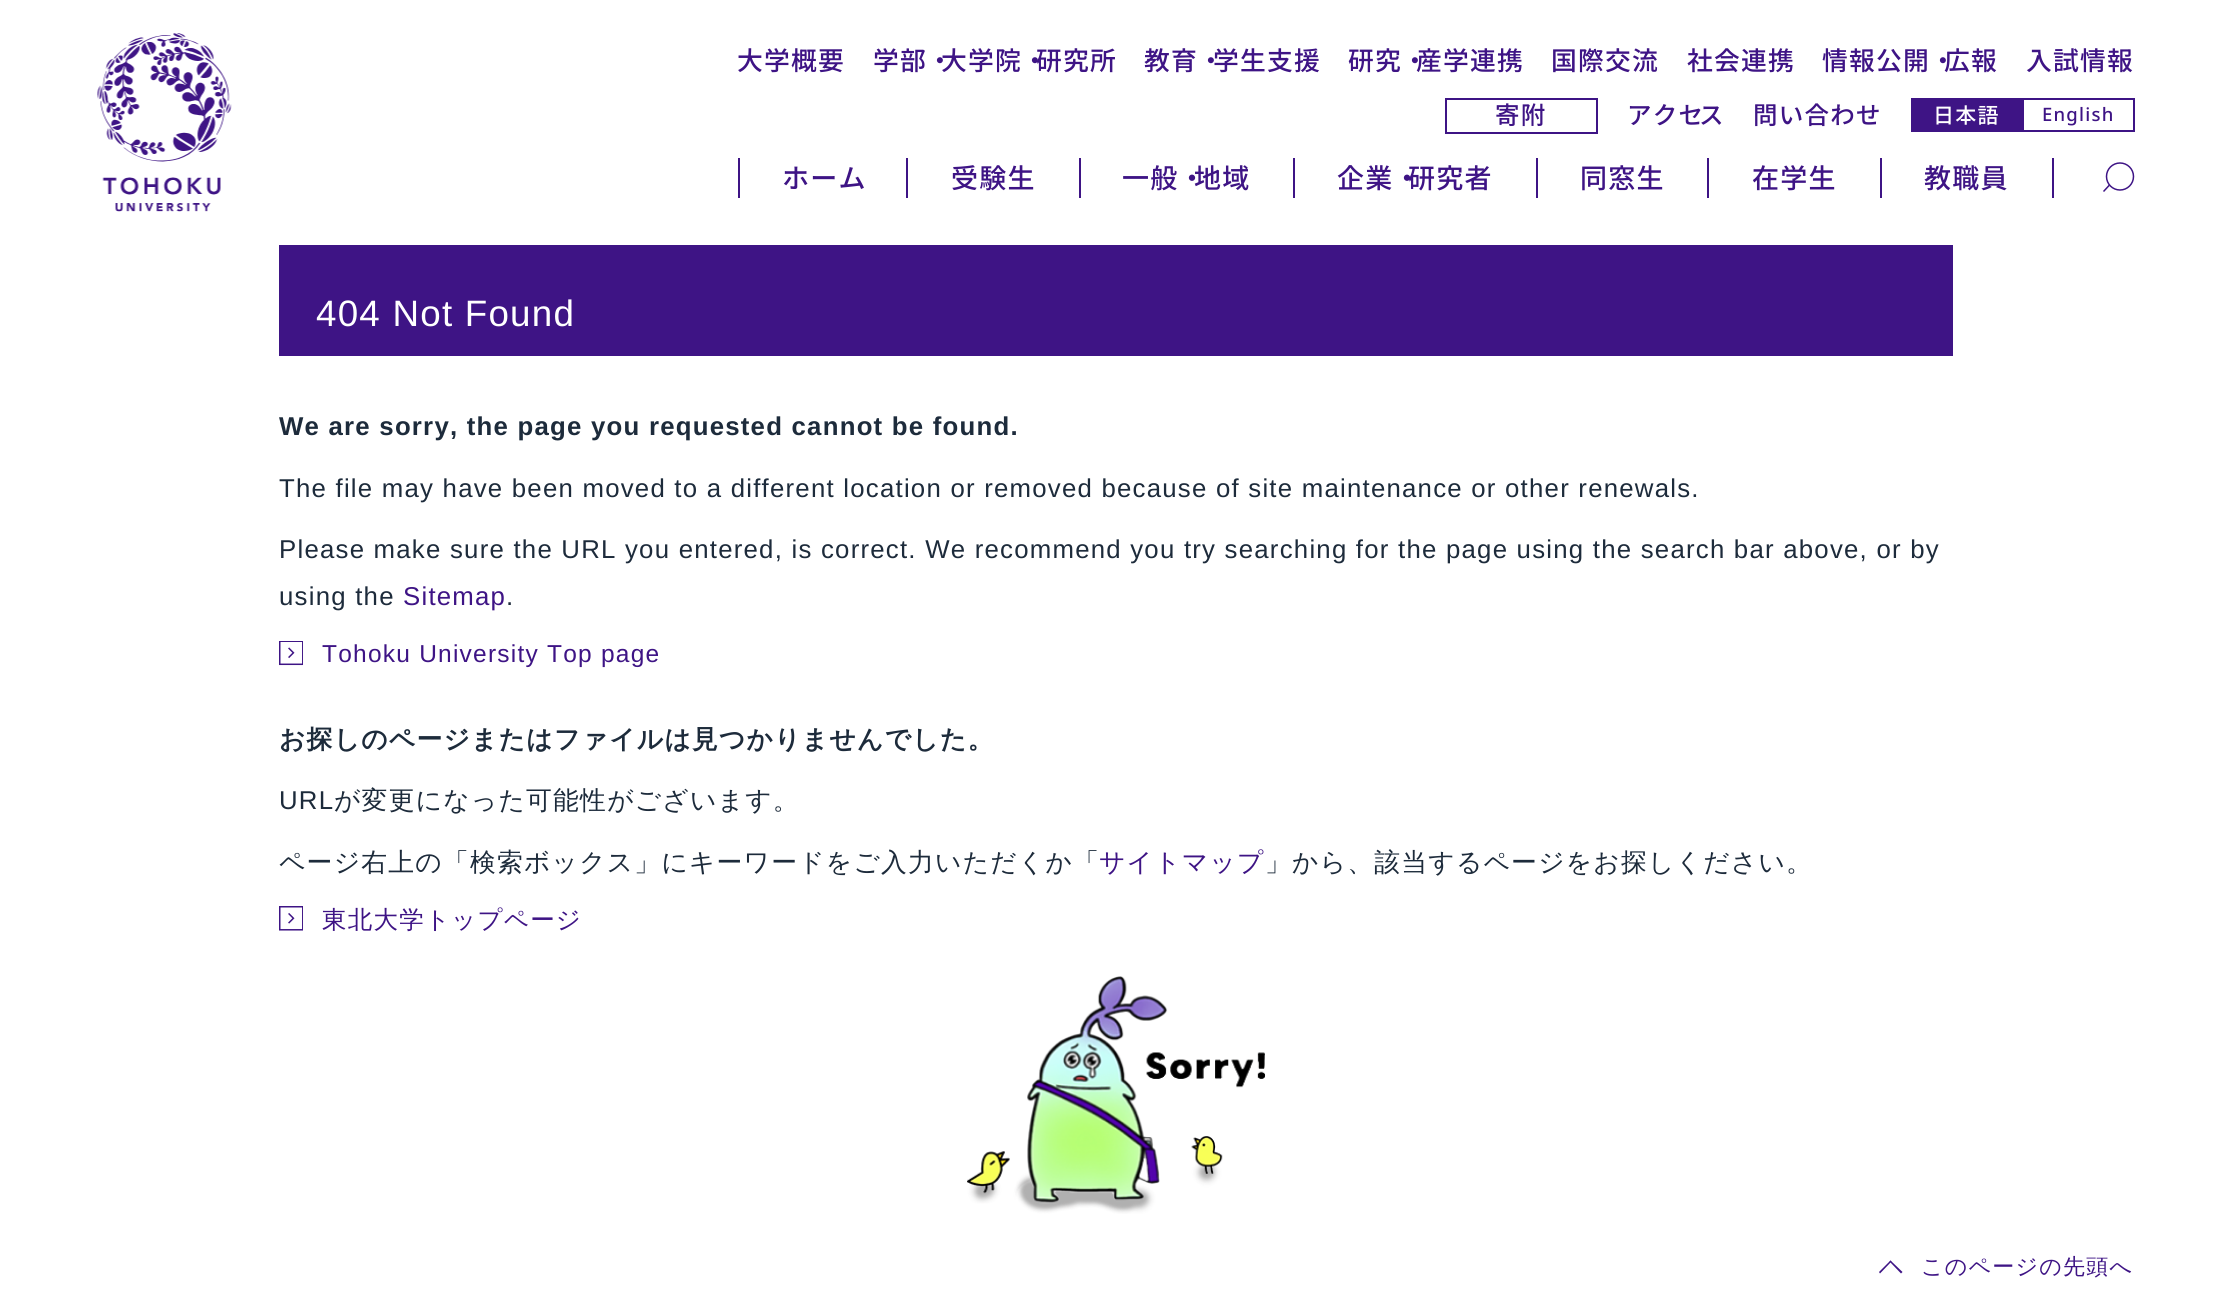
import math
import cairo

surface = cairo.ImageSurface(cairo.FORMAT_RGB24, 2231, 1314)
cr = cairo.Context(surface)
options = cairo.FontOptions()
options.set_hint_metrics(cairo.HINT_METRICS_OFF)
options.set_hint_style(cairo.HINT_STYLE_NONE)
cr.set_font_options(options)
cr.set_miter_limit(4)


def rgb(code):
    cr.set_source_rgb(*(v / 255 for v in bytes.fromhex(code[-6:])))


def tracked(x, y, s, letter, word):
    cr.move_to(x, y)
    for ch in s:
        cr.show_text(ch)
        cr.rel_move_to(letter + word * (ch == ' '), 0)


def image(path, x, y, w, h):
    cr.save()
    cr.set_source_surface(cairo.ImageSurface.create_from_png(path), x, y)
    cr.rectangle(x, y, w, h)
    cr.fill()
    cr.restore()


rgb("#ffffff")
cr.paint()
image("img/1.png", 97, 33, 135, 179)
cr.rectangle(1446, 99, 151, 34)
rgb("#3e1485")
cr.stroke()
cr.rectangle(1911, 98, 111, 34)
cr.fill()
cr.rectangle(2023, 99, 111, 32)
cr.stroke()
for x, y, w, h, color in [
    (738, 158, 2, 40, "#3e1485"),
    (906, 158, 2, 40, "#3e1485"),
    (1079, 158, 2, 40, "#3e1485"),
    (1293, 158, 2, 40, "#3e1485"),
    (1536, 158, 2, 40, "#3e1485"),
    (1707, 158, 2, 40, "#3e1485"),
    (2052, 158, 2, 40, "#3e1485"),
    (1880, 158, 2, 40, "#3e1485"),
]:
    rgb(color)
    cr.rectangle(x, y, w, h)
    cr.fill()
cr.arc(2120, 176.5, 13.5, 0, 2 * math.pi)
cr.set_line_width(1.5)
cr.stroke()
cr.new_path()
cr.move_to(2109.5, 185)
cr.line_to(2103.5, 191.5)
cr.stroke()
cr.rectangle(279, 245, 1674, 111)
cr.fill()
image("img/2.png", 279, 641, 24, 25)
image("img/3.png", 279, 906, 24, 25)
image("img/4.png", 967, 976, 299, 238)
cr.new_path()
cr.move_to(1890.5, 1260.5)
cr.line_to(1902.5, 1272)
cr.line_to(1901, 1273.5)
cr.line_to(1889.5, 1261.5)
cr.close_path()
cr.fill()
cr.new_path()
cr.move_to(1890.5, 1260.5)
cr.line_to(1891.5, 1261.5)
cr.line_to(1880, 1273.5)
cr.line_to(1879, 1272)
cr.close_path()
cr.fill()
cr.select_font_face("Noto Sans JP Medium")
cr.set_font_size(25.78)
for x, y, s in [
    (737, 70, "大学概要"),
    (873, 70, "学部・"),
    (941, 70, "大学院・"),
    (1036, 70, "研究所"),
    (1144, 70, "教育・"),
    (1213, 70, "学生支援"),
    (1348, 70, "研究・"),
    (1416, 70, "産学連携"),
    (1551, 70, "国際交流"),
    (1687, 70, "社会連携"),
    (1822, 70, "情報公開・"),
    (1944, 70, "広報"),
    (2026, 70, "入試情報"),
]:
    tracked(x, y, s, 1.23, 0)
cr.set_font_size(24.5)
for x, y, s in [
    (1495, 124, "寄附"),
    (1627, 124, "アクセ"),
    (1699, 124, "ス"),
    (1753, 124, "問い合わせ"),
]:
    tracked(x, y, s, 1.23, 0)
cr.set_font_size(21)
rgb("#ffffff")
tracked(1933, 123, "日本語", 1.23, 0)
cr.select_font_face("Noto Sans Medium")
cr.set_font_size(18.5)
rgb("#3e1485")
tracked(2042, 121, "English", 1.23, 0)
cr.select_font_face("Noto Sans JP Medium")
cr.set_font_size(27)
for x, y, s in [
    (782, 188, "ホーム"),
    (951, 188, "受験生"),
    (1122, 188, "一般・"),
    (1194, 188, "地域"),
    (1337, 188, "企業・"),
    (1408, 188, "研究者"),
    (1580, 188, "同窓生"),
    (1752, 188, "在学生"),
    (1924, 188, "教職員"),
]:
    tracked(x, y, s, 1.23, 0)
cr.select_font_face("Liberation Sans")
cr.set_font_size(36.75)
rgb("#ffffff")
tracked(316, 326, "404 Not Found", 1.23, 0)
cr.select_font_face("Liberation Sans", cairo.FONT_SLANT_NORMAL, cairo.FONT_WEIGHT_BOLD)
cr.set_font_size(25.78)
rgb("#1d2b3b")
tracked(279, 435, "We are sorry, the page you requested cannot be found.", 1.23, 0)
cr.select_font_face("Liberation Sans")
for x, y, s in [
    (279, 497, "The file may have been moved to a different location or removed because of site maintenance or other renewals."),
    (279, 558, "Please make sure the URL you entered, is correct. We recommend you try searching for the page using the search bar above, or by"),
    (279, 605, "using the"),
]:
    tracked(x, y, s, 1.23, 0)
rgb("#3e1485")
tracked(403, 605, "Sitemap", 1.23, 0)
rgb("#1d2b3b")
tracked(506, 605, ".", 1.23, 0)
cr.set_font_size(24.5)
rgb("#3e1485")
tracked(322, 662, "Tohoku University Top page", 1.23, 0)
cr.select_font_face("WenQuanYi Zen Hei", cairo.FONT_SLANT_NORMAL, cairo.FONT_WEIGHT_BOLD)
cr.set_font_size(25.78)
rgb("#1d2b3b")
tracked(279, 748, "お探しのページまたはファイルは見つかりませんでした。", 1.23, 0)
cr.select_font_face("Liberation Sans")
tracked(279, 809, "URL", 1.23, 0)
cr.select_font_face("WenQuanYi Zen Hei Medium")
tracked(334, 809, "が変更になった可能性がございます。", 1.23, 0)
tracked(279, 871, "ページ右上の「検索ボックス」にキーワードをご入力いただくか「", 1.23, 0)
rgb("#3e1485")
tracked(1099, 871, "サイトマップ", 1.23, 0)
rgb("#1d2b3b")
tracked(1265, 871, "」から、該当するページをお探しください。", 1.23, 0)
cr.set_font_size(24.5)
rgb("#3e1485")
tracked(322, 928, "東北大学トップページ", 1.23, 0)
cr.set_font_size(22)
tracked(1921, 1274, "このページの先頭へ", 1.23, 0)
surface.write_to_png("page.png")
